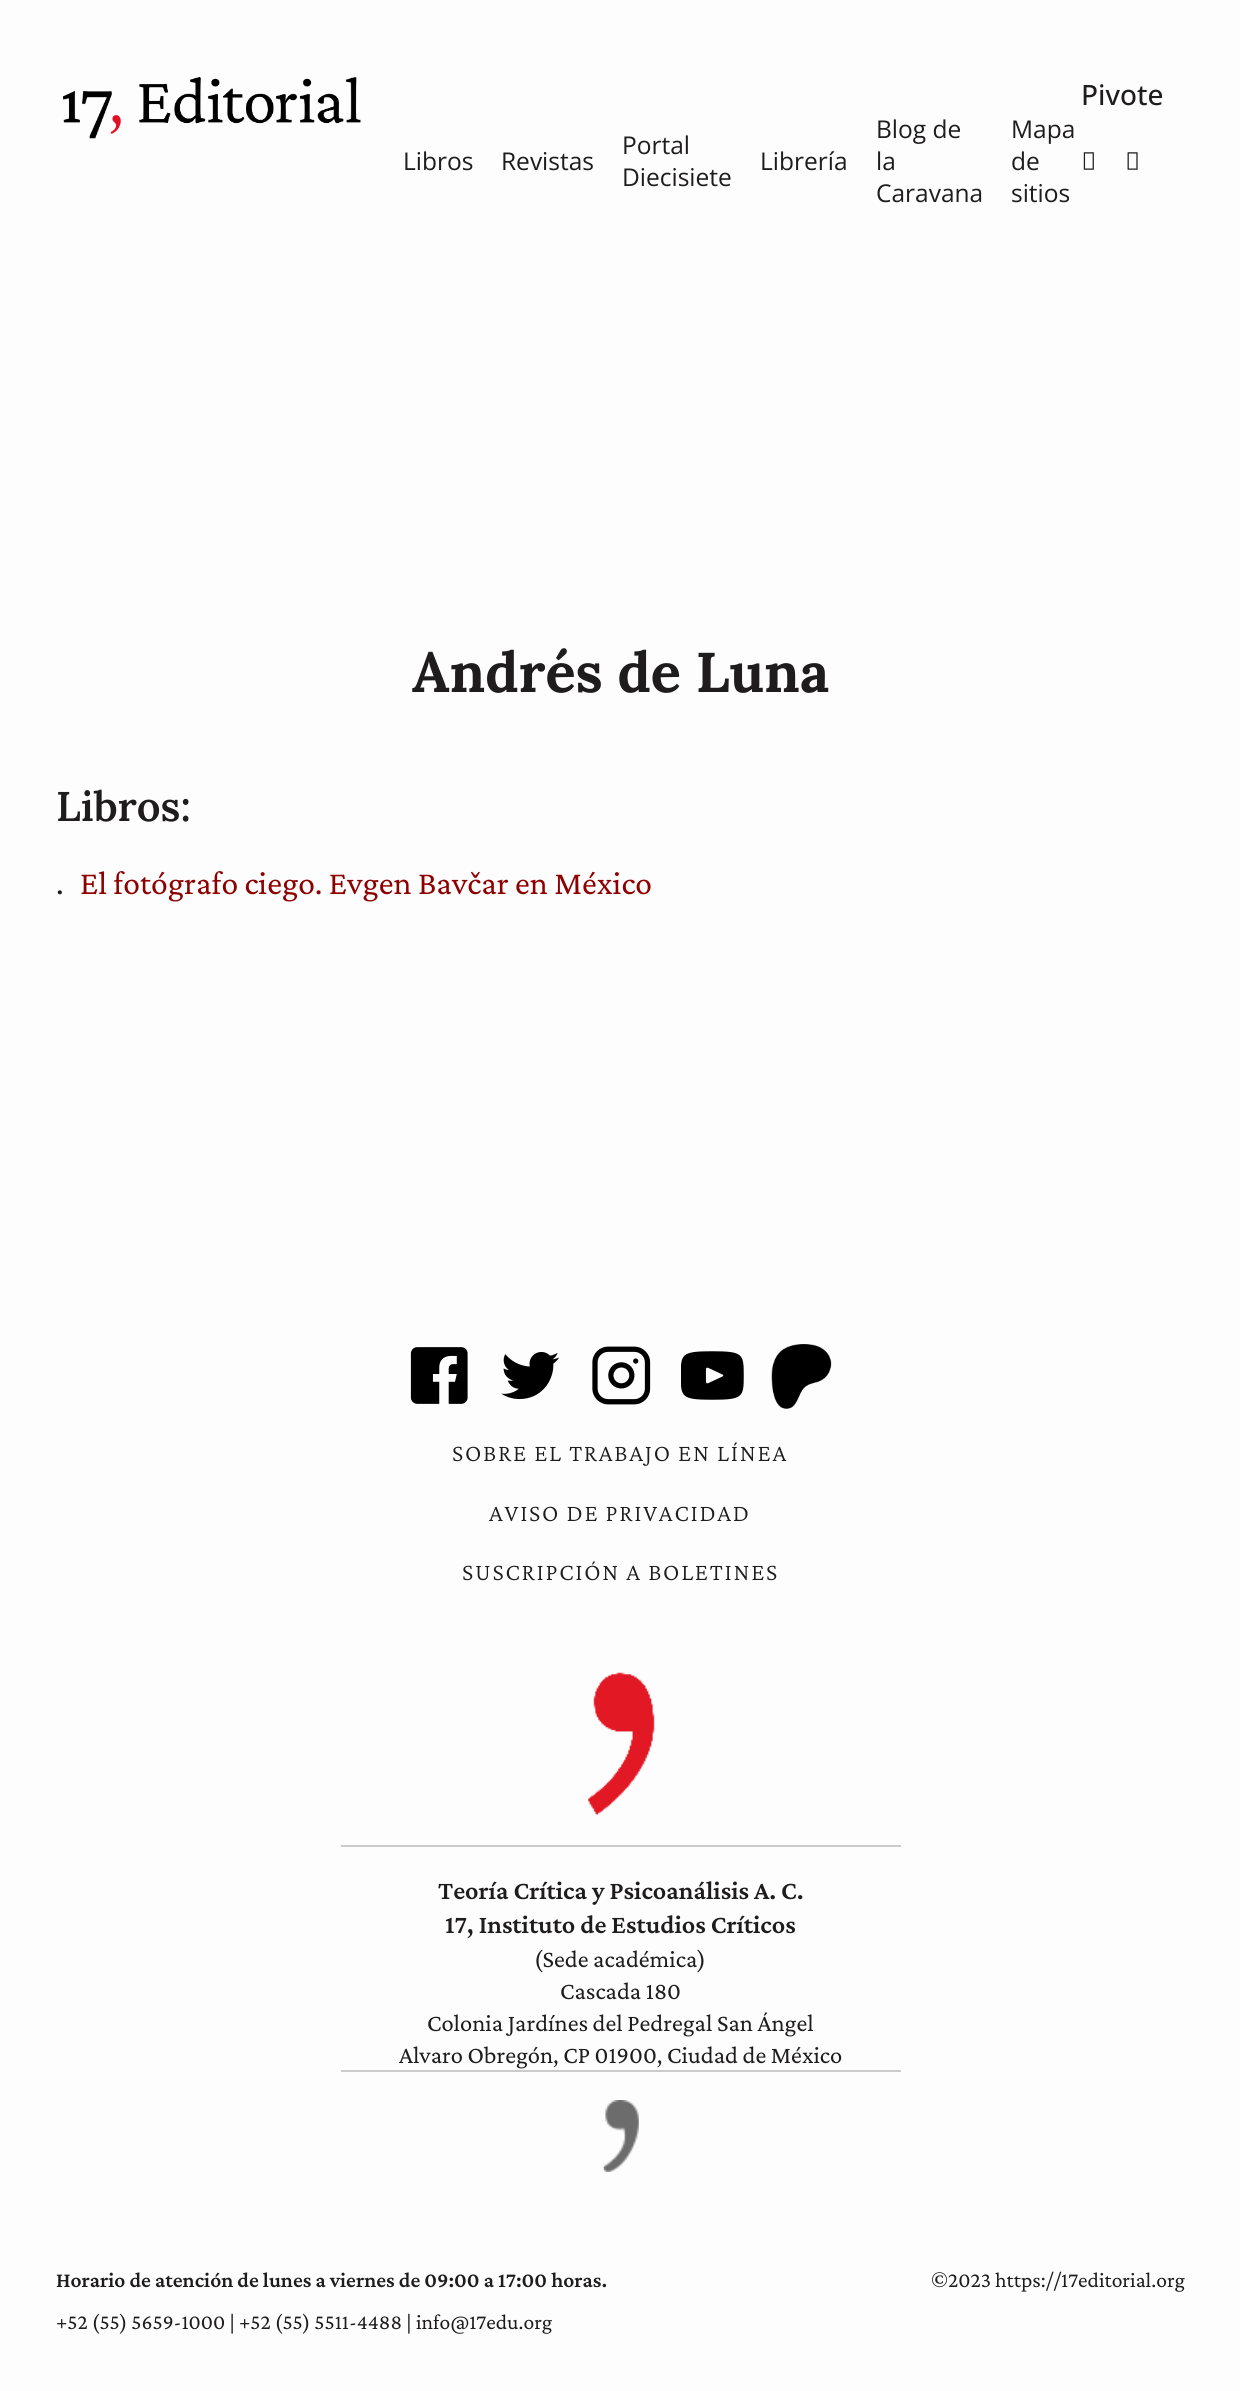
import math
import cairo

surface = cairo.ImageSurface(cairo.FORMAT_RGB24, 1240, 2391)
cr = cairo.Context(surface)
options = cairo.FontOptions()
options.set_hint_metrics(cairo.HINT_METRICS_OFF)
options.set_hint_style(cairo.HINT_STYLE_NONE)
cr.set_font_options(options)
cr.set_miter_limit(4)


def rgb(code):
    cr.set_source_rgb(*(v / 255 for v in bytes.fromhex(code[-6:])))


def tracked(x, y, s, letter, word):
    cr.move_to(x, y)
    for ch in s:
        cr.show_text(ch)
        cr.rel_move_to(letter + word * (ch == ' '), 0)


def image(path, x, y, w, h):
    cr.save()
    cr.set_source_surface(cairo.ImageSurface.create_from_png(path), x, y)
    cr.rectangle(x, y, w, h)
    cr.fill()
    cr.restore()


rgb("#fdfdfd")
cr.paint()
image("img/1.png", 63, 77, 298, 62)
image("img/2.png", 1083, 152, 11, 18)
image("img/3.png", 1127, 152, 11, 18)
image("img/4.png", 410, 1347, 58, 57)
image("img/5.png", 501, 1351, 59, 49)
image("img/6.png", 592, 1346, 59, 59)
image("img/7.png", 681, 1351, 63, 49)
image("img/8.png", 771, 1344, 61, 65)
image("img/9.png", 588, 1672, 67, 143)
rgb("#cbcbcb")
cr.rectangle(341, 1845, 560, 2)
cr.fill()
image("img/10.png", 603, 2100, 36, 72)
cr.rectangle(341, 2070, 560, 2)
cr.fill()
cr.select_font_face("Open Sans Medium")
cr.set_font_size(28)
rgb("#1e1c1c")
cr.move_to(1081, 105)
cr.show_text("Pivote")
cr.select_font_face("Open Sans")
cr.set_font_size(24.5)
for x, y, s in [
    (403, 170, "Libros"),
    (501, 170, "Revistas"),
    (622, 154, "Portal"),
    (622, 186, "Diecisiete"),
    (760, 170, "Librería"),
    (876, 138, "Blog de"),
    (876, 170, "la"),
    (876, 202, "Caravana"),
    (1011, 138, "Mapa"),
    (1011, 170, "de"),
    (1011, 202, "sitios"),
]:
    cr.move_to(x, y)
    cr.show_text(s)
cr.select_font_face("Lora", cairo.FONT_SLANT_NORMAL, cairo.FONT_WEIGHT_BOLD)
cr.set_font_size(56)
cr.move_to(412, 692)
cr.show_text("Andrés de Luna")
cr.select_font_face("Lora SemiBold")
cr.set_font_size(41.5)
cr.move_to(56, 821)
cr.show_text("Libros:")
cr.select_font_face("Crimson Pro")
cr.set_font_size(33.6)
cr.move_to(56, 894)
cr.show_text(".")
rgb("#8e0000")
cr.move_to(80, 894)
cr.show_text("El fotógrafo ciego. Evgen Bavčar en México")
cr.select_font_face("Crimson Pro Light")
cr.set_font_size(24.5)
rgb("#1e1c1c")
for x, y, s in [
    (452, 1461, "SOBRE EL TRABAJO EN LÍNEA"),
    (489, 1521, "AVISO DE PRIVACIDAD"),
    (462, 1580, "SUSCRIPCIÓN A BOLETINES"),
]:
    tracked(x, y, s, 1.75, 0)
cr.select_font_face("Crimson Pro SemiBold")
cr.set_font_size(26.25)
cr.move_to(438, 1899)
cr.show_text("Teoría Crítica y Psicoanálisis A. C.")
cr.move_to(445, 1933)
cr.show_text("17, Instituto de Estudios Críticos")
cr.select_font_face("Crimson Pro")
cr.set_font_size(24.5)
for x, y, s in [
    (534, 1967, "(Sede académica)"),
    (560, 1999, "Cascada 180"),
    (427, 2031, "Colonia Jardínes del Pedregal San Ángel"),
    (399, 2063, "Alvaro Obregón, CP 01900, Ciudad de México"),
]:
    cr.move_to(x, y)
    cr.show_text(s)
cr.select_font_face("Crimson Pro SemiBold")
cr.set_font_size(21.55)
cr.move_to(56, 2287)
cr.show_text("Horario de atención de lunes a viernes de 09:00 a 17:00 horas.")
cr.select_font_face("Crimson Pro")
cr.move_to(56, 2329)
cr.show_text("+52 (55) 5659-1000 | +52 (55) 5511-4488 | info@17edu.org")
cr.move_to(931, 2287)
cr.show_text("©2023 https://17editorial.org")
surface.write_to_png("page.png")
